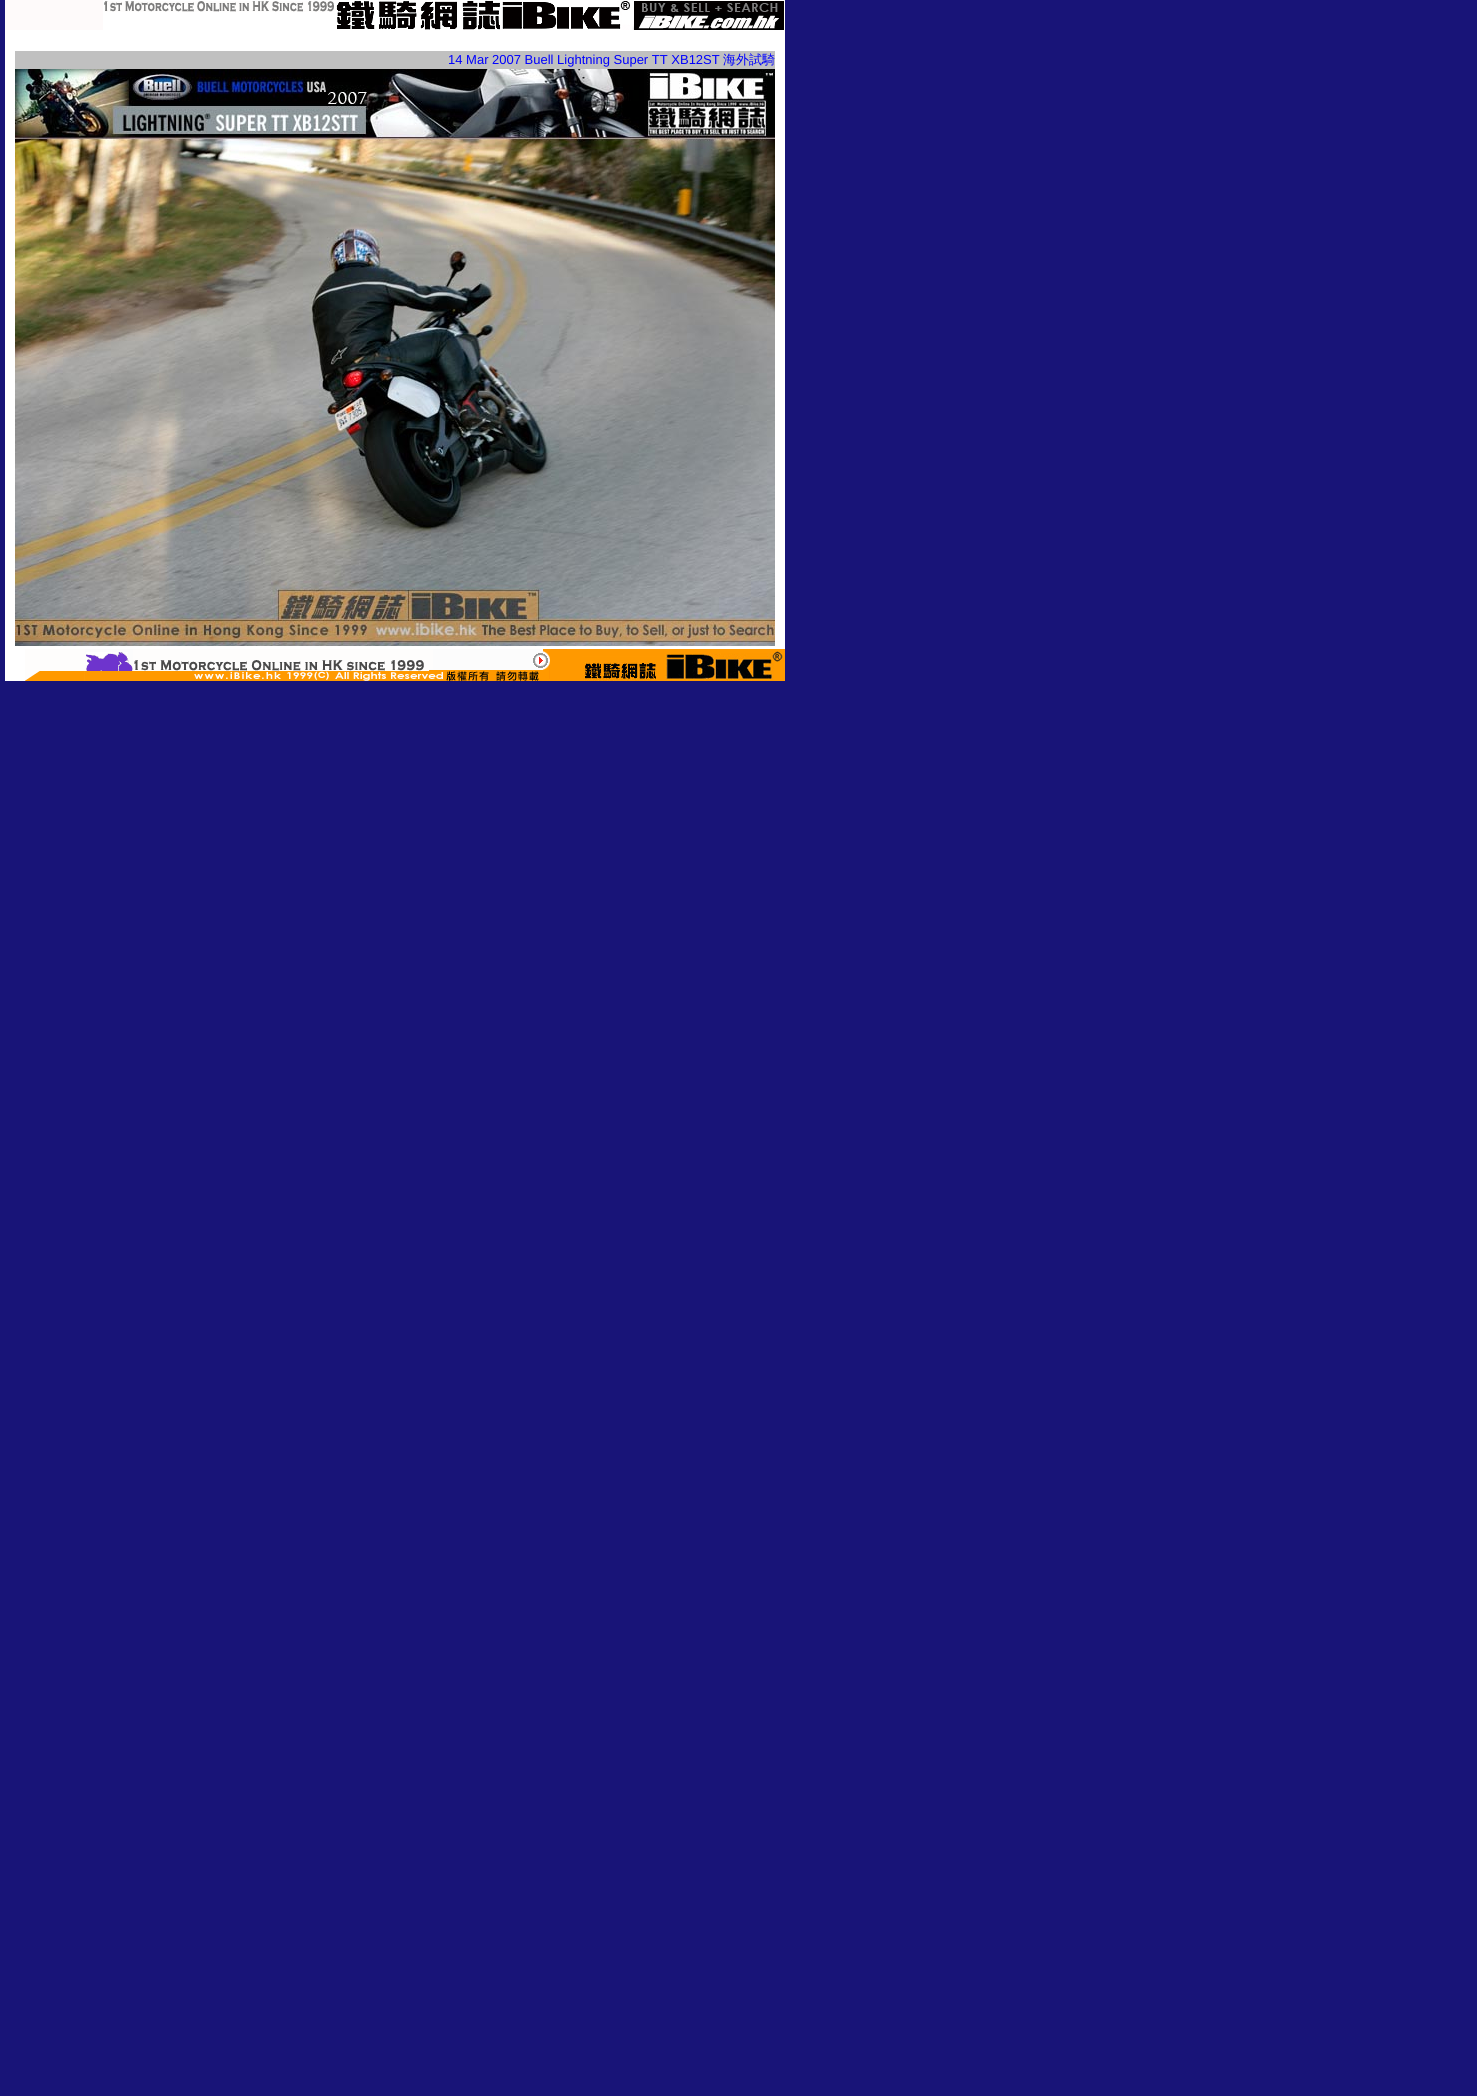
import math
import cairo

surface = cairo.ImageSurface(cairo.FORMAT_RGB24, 1477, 2096)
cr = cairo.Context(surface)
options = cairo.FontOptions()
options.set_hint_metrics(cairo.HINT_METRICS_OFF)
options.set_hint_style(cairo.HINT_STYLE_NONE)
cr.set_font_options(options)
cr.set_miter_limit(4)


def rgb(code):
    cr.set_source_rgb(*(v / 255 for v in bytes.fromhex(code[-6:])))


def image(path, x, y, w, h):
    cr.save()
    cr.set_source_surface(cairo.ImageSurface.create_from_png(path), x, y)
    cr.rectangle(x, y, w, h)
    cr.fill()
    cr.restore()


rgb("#181478")
cr.paint()
rgb("#ffffff")
cr.rectangle(5, 0, 780, 681)
cr.fill()
rgb("#fefafa")
cr.rectangle(5, 0, 98, 30)
cr.fill()
image("img/1.png", 104, 1, 230, 11)
image("img/2.png", 336, 0, 448, 30)
rgb("#c0c0c0")
cr.rectangle(15, 51, 760, 18)
cr.fill()
image("img/3.png", 15, 69, 760, 577)
image("img/4.png", 25, 649, 760, 32)
cr.select_font_face("Liberation Sans")
cr.set_font_size(13)
rgb("#0000ff")
cr.move_to(448, 64)
cr.show_text("14 Mar 2007 Buell Lightning Super TT XB12ST")
cr.select_font_face("WenQuanYi Zen Hei Medium")
cr.move_to(723, 64)
cr.show_text("海外試騎")
surface.write_to_png("page.png")
